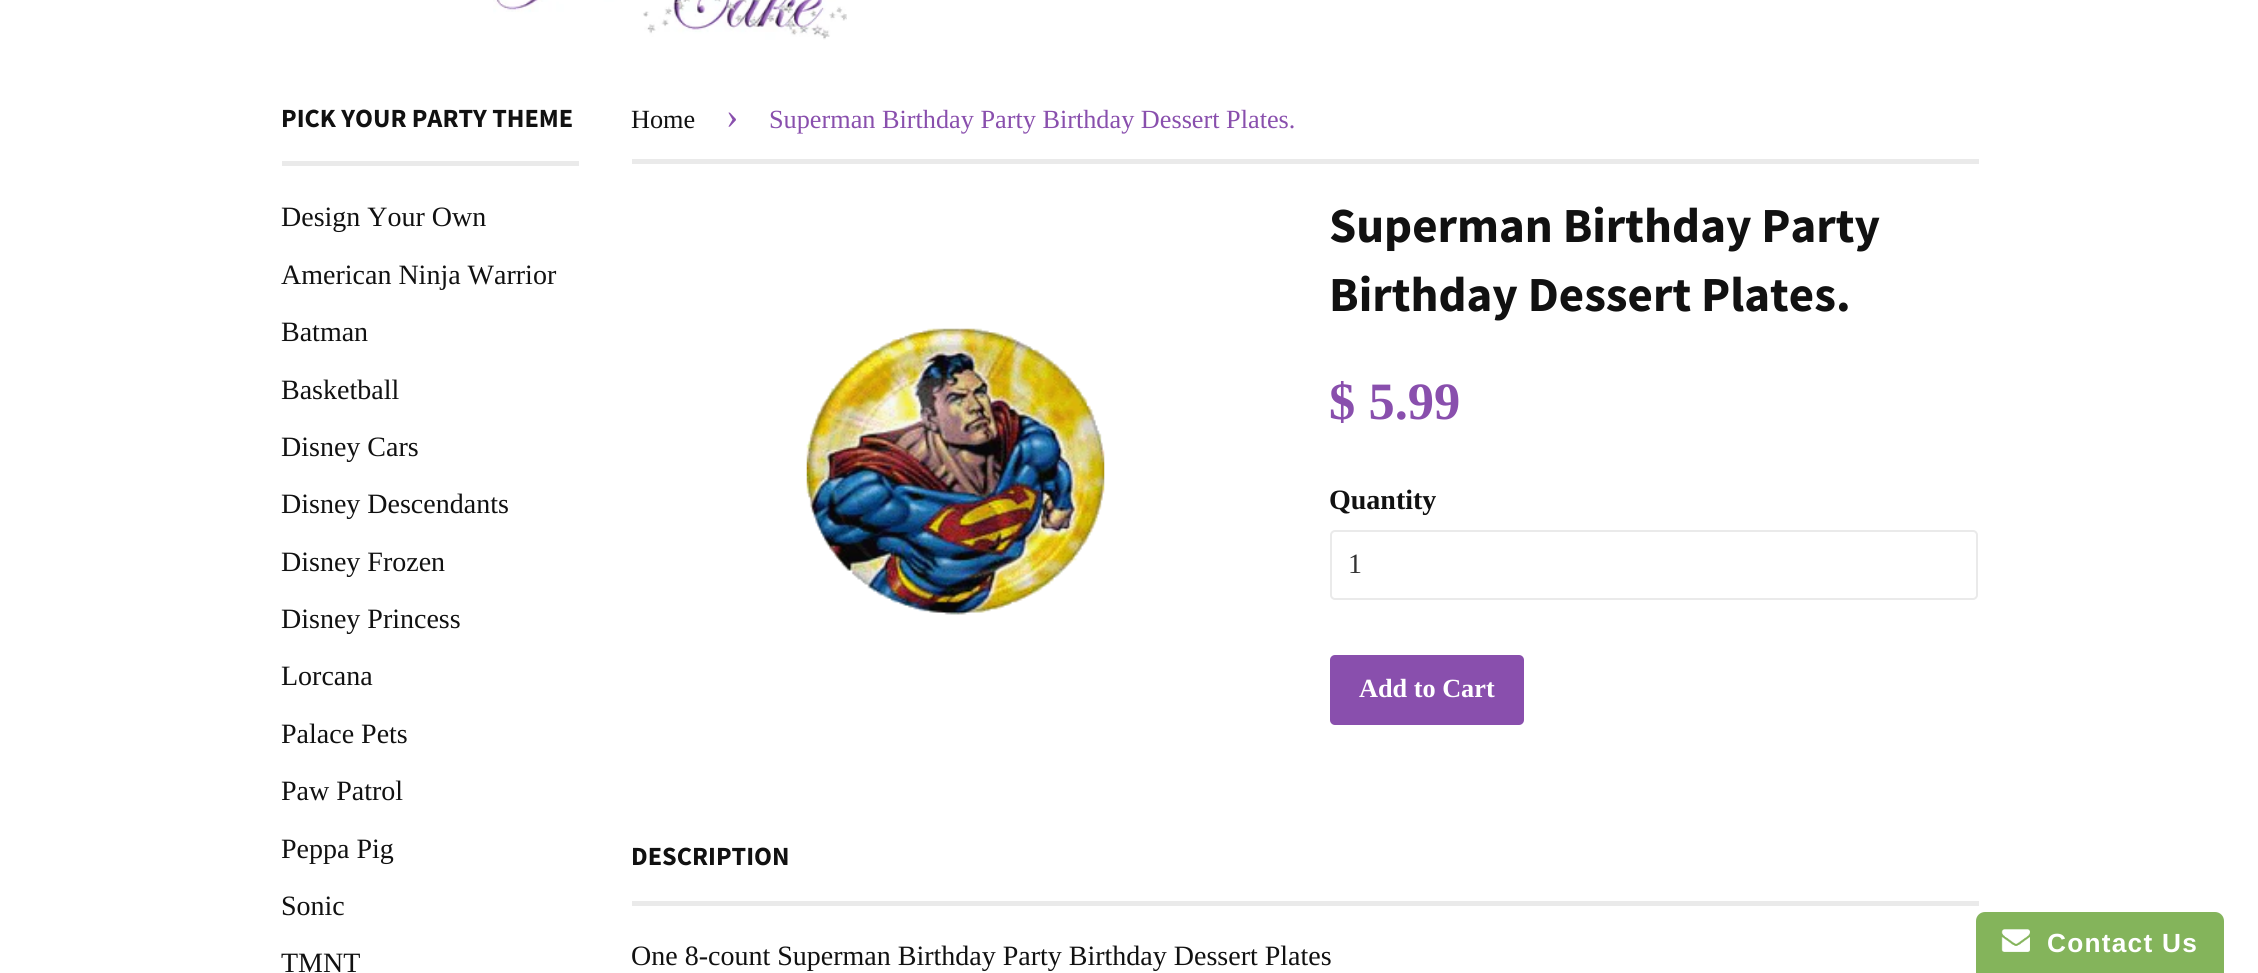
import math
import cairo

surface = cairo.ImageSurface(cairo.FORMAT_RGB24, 2258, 973)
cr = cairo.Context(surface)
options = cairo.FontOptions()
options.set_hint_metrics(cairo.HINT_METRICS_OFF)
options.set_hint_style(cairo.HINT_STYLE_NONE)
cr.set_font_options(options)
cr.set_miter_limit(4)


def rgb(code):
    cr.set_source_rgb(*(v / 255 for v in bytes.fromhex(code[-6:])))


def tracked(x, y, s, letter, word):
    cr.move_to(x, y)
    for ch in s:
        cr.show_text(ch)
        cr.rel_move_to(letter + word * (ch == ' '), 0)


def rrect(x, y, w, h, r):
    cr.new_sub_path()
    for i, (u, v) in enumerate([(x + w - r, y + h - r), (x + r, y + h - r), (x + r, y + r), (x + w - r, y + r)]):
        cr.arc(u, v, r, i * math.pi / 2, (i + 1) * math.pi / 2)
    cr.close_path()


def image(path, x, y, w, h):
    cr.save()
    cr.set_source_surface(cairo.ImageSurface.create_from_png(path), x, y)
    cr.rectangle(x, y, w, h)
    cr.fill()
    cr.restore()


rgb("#ffffff")
cr.paint()
image("img/1.png", 493, 0, 354, 40)
rgb("#eaeaea")
cr.rectangle(282, 161, 297, 5)
cr.fill()
cr.rectangle(632, 159, 1347, 5)
cr.fill()
image("img/2.png", 806, 328, 299, 287)
rrect(1331, 531, 646, 68, 4)
cr.stroke()
rgb("#894fad")
rrect(1330, 655, 194, 70, 5)
cr.fill()
rgb("#eaeaea")
cr.rectangle(632, 901, 1347, 5)
cr.fill()
rgb("#84b45b")
cr.new_path()
cr.move_to(1985, 912)
cr.line_to(2215, 912)
cr.curve_to(2220, 912, 2224, 916, 2224, 921)
cr.line_to(2224, 973)
cr.line_to(1976, 973)
cr.line_to(1976, 921)
cr.curve_to(1976, 916, 1980, 912, 1985, 912)
cr.close_path()
cr.fill()
image("img/3.png", 2001, 929, 29, 23)
cr.select_font_face("Source Sans Pro", cairo.FONT_SLANT_NORMAL, cairo.FONT_WEIGHT_BOLD)
cr.set_font_size(26.25)
rgb("#111111")
cr.move_to(281, 127)
cr.show_text("PICK YOUR PARTY THEME")
cr.select_font_face("Liberation Serif")
cr.set_font_size(28)
for x, y, s in [
    (281, 226, "Design Your Own"),
    (281, 284, "American Ninja Warrior"),
    (281, 341, "Batman"),
    (281, 399, "Basketball"),
    (281, 456, "Disney Cars"),
    (281, 513, "Disney Descendants"),
    (281, 571, "Disney Frozen"),
    (281, 628, "Disney Princess"),
    (281, 685, "Lorcana"),
    (281, 743, "Palace Pets"),
    (281, 800, "Paw Patrol"),
    (281, 858, "Peppa Pig"),
    (281, 915, "Sonic"),
    (281, 972, "TMNT"),
]:
    cr.move_to(x, y)
    cr.show_text(s)
cr.set_font_size(26.25)
cr.move_to(631, 128)
cr.show_text("Home")
cr.set_font_size(37)
rgb("#894fad")
cr.move_to(726, 128)
cr.show_text("›")
cr.set_font_size(26.25)
cr.move_to(769, 128)
cr.show_text("Superman Birthday Party Birthday Dessert Plates.")
cr.select_font_face("Source Sans Pro", cairo.FONT_SLANT_NORMAL, cairo.FONT_WEIGHT_BOLD)
cr.set_font_size(49)
rgb("#111111")
cr.move_to(1329, 242)
cr.show_text("Superman Birthday Party")
cr.move_to(1329, 311)
cr.show_text("Birthday Dessert Plates.")
cr.select_font_face("Liberation Serif", cairo.FONT_SLANT_NORMAL, cairo.FONT_WEIGHT_BOLD)
cr.set_font_size(52.5)
rgb("#894fad")
cr.move_to(1329, 419)
cr.show_text("$ 5.99")
cr.set_font_size(28)
rgb("#111111")
cr.move_to(1329, 509)
cr.show_text("Quantity")
cr.select_font_face("Liberation Serif")
rgb("#333333")
cr.move_to(1348, 573)
cr.show_text("1")
cr.select_font_face("Liberation Serif", cairo.FONT_SLANT_NORMAL, cairo.FONT_WEIGHT_BOLD)
cr.set_font_size(26.25)
rgb("#ffffff")
cr.move_to(1359, 697)
cr.show_text("Add to Cart")
cr.select_font_face("Source Sans Pro", cairo.FONT_SLANT_NORMAL, cairo.FONT_WEIGHT_BOLD)
rgb("#111111")
cr.move_to(631, 865)
cr.show_text("DESCRIPTION")
cr.select_font_face("Liberation Serif")
cr.set_font_size(28)
cr.move_to(631, 965)
cr.show_text("One 8-count Superman Birthday Party Birthday Dessert Plates")
cr.select_font_face("Liberation Sans", cairo.FONT_SLANT_NORMAL, cairo.FONT_WEIGHT_BOLD)
cr.set_font_size(26.25)
rgb("#ffffff")
tracked(2047, 952, "Contact Us", 1.25, 0)
surface.write_to_png("page.png")
